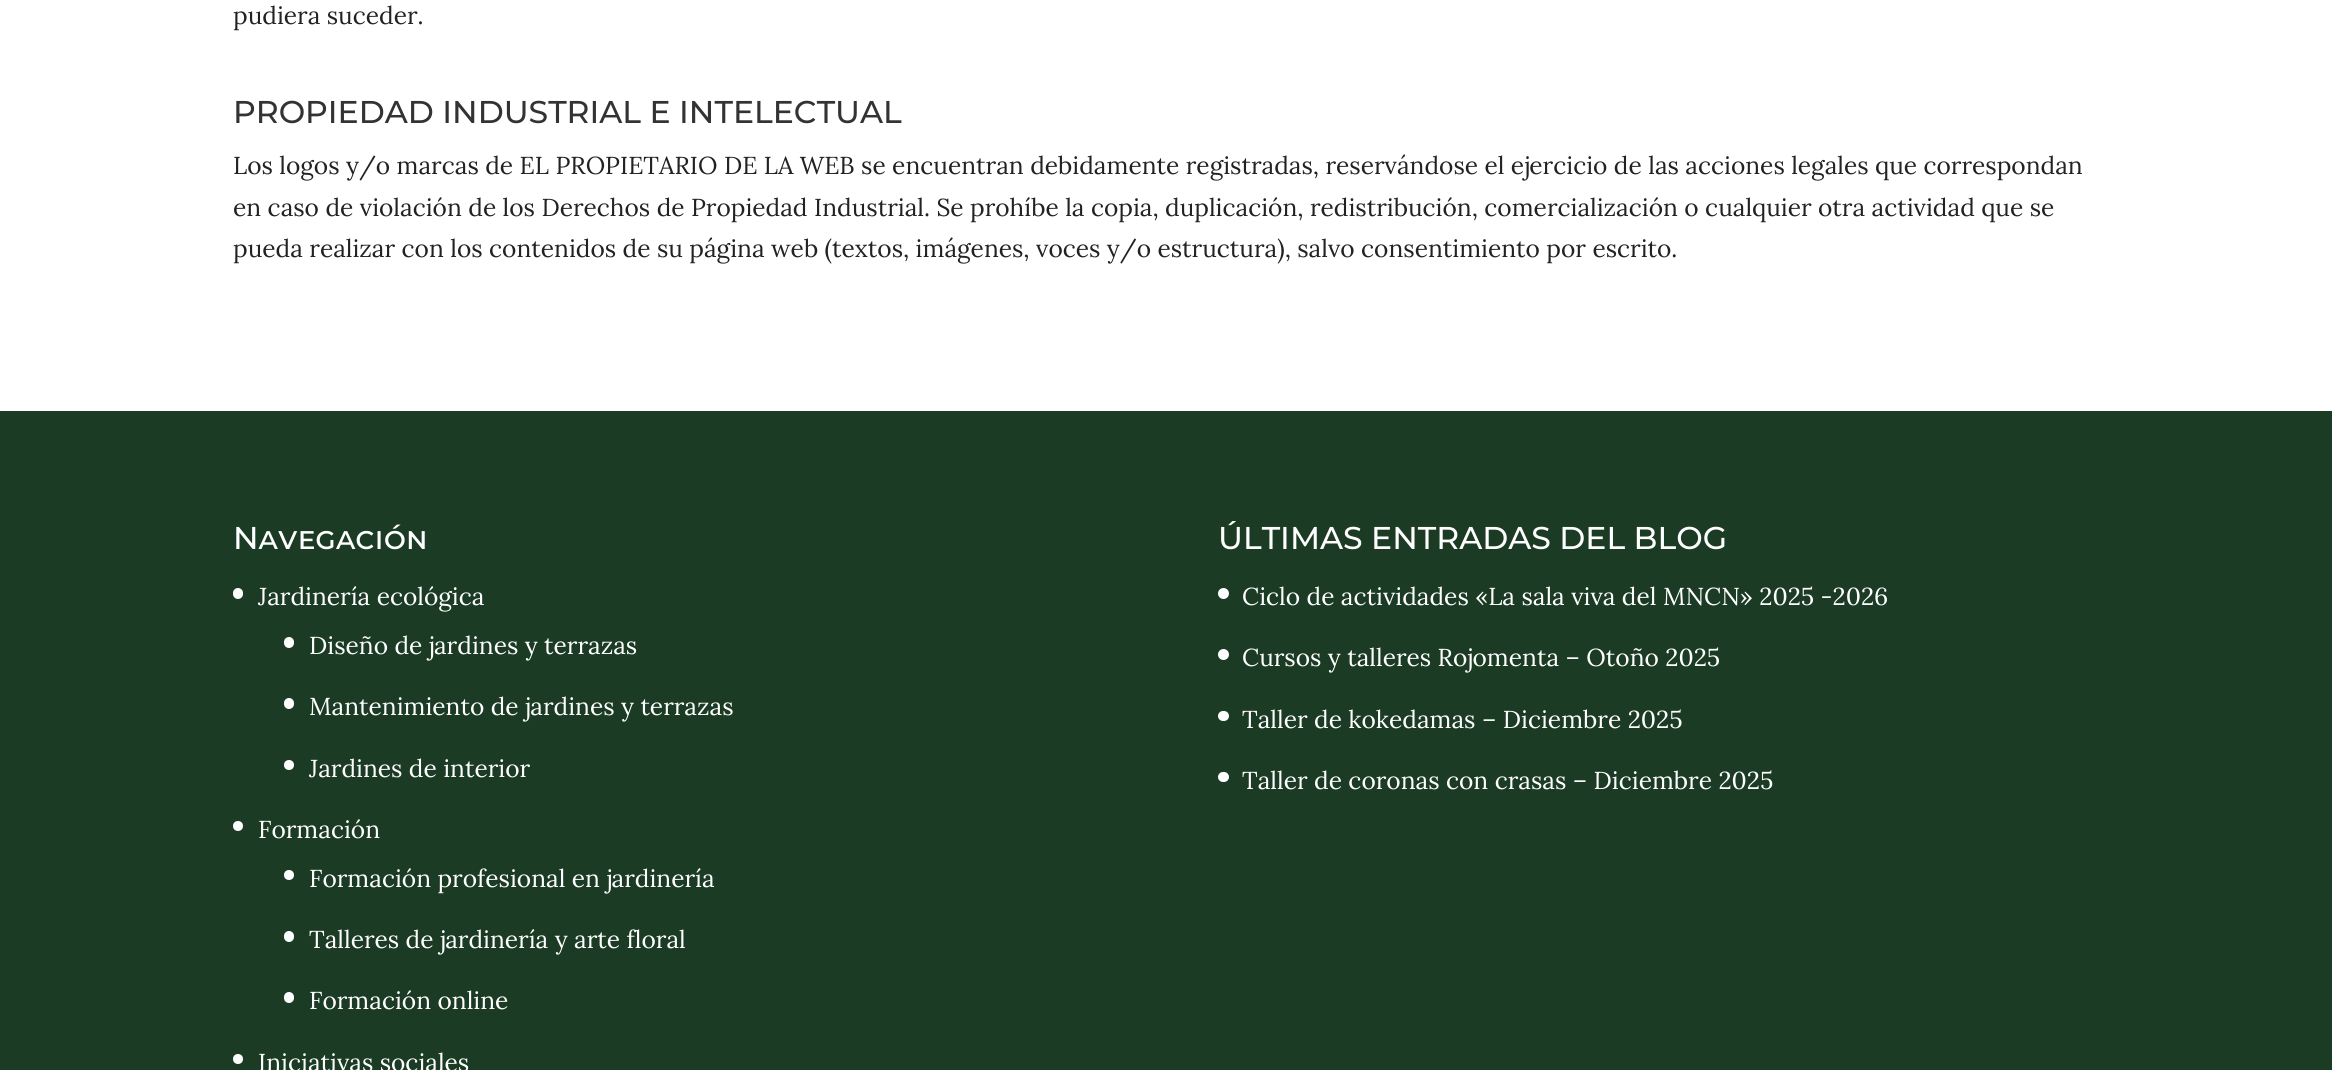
import math
import cairo

surface = cairo.ImageSurface(cairo.FORMAT_RGB24, 2332, 1070)
cr = cairo.Context(surface)
options = cairo.FontOptions()
options.set_hint_metrics(cairo.HINT_METRICS_OFF)
options.set_hint_style(cairo.HINT_STYLE_NONE)
cr.set_font_options(options)
cr.set_miter_limit(4)


def rgb(code):
    cr.set_source_rgb(*(v / 255 for v in bytes.fromhex(code[-6:])))


def rrect(x, y, w, h, r):
    cr.new_sub_path()
    for i, (u, v) in enumerate([(x + w - r, y + h - r), (x + r, y + h - r), (x + r, y + r), (x + w - r, y + r)]):
        cr.arc(u, v, r, i * math.pi / 2, (i + 1) * math.pi / 2)
    cr.close_path()


rgb("#ffffff")
cr.paint()
rgb("#1c3b25")
cr.rectangle(0, 411, 2332, 659)
cr.fill()
rgb("#ffffff")
rrect(233, 588, 10, 11, 5)
cr.fill()
rrect(284, 637, 10, 11, 5)
cr.fill()
rrect(284, 698, 10, 11, 5)
cr.fill()
cr.arc(289, 765, 5, 0, 2 * math.pi)
cr.fill()
cr.arc(238, 826, 5, 0, 2 * math.pi)
cr.fill()
cr.arc(289, 875, 5, 0, 2 * math.pi)
cr.fill()
rrect(284, 931, 10, 11, 5)
cr.fill()
rrect(284, 992, 10, 11, 5)
cr.fill()
cr.arc(238, 1059, 5, 0, 2 * math.pi)
cr.fill()
cr.arc(1223.5, 593.5, 5.5, 0, 2 * math.pi)
cr.fill()
cr.arc(1223.5, 654.5, 5.5, 0, 2 * math.pi)
cr.fill()
rrect(1218, 711, 11, 10, 5)
cr.fill()
rrect(1218, 772, 11, 10, 5)
cr.fill()
cr.select_font_face("Lora")
cr.set_font_size(24.5)
rgb("#222222")
cr.move_to(233, 24)
cr.show_text("pudiera suceder.")
cr.select_font_face("Montserrat Medium")
cr.set_font_size(31.5)
rgb("#333333")
cr.move_to(233, 123)
cr.show_text("PROPIEDAD INDUSTRIAL E INTELECTUAL")
cr.select_font_face("Lora")
cr.set_font_size(24.5)
rgb("#222222")
for x, y, s in [
    (233, 174, "Los logos y/o marcas de EL PROPIETARIO DE LA WEB se encuentran debidamente registradas, reservándose el ejercicio de las acciones legales que correspondan"),
    (233, 216, "en caso de violación de los Derechos de Propiedad Industrial. Se prohíbe la copia, duplicación, redistribución, comercialización o cualquier otra actividad que se"),
    (233, 257, "pueda realizar con los contenidos de su página web (textos, imágenes, voces y/o estructura), salvo consentimiento por escrito."),
]:
    cr.move_to(x, y)
    cr.show_text(s)
cr.select_font_face("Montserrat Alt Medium")
cr.set_font_size(31.5)
rgb("#ffffff")
cr.move_to(233, 549)
cr.show_text("Navegación")
cr.select_font_face("Lora")
cr.set_font_size(24.5)
for x, y, s in [
    (258, 605, "Jardinería ecológica"),
    (309, 654, "Diseño de jardines y terrazas"),
    (309, 715, "Mantenimiento de jardines y terrazas"),
    (309, 777, "Jardines de interior"),
    (258, 838, "Formación"),
    (309, 887, "Formación profesional en jardinería"),
    (309, 948, "Talleres de jardinería y arte floral"),
    (309, 1009, "Formación online"),
    (258, 1071, "Iniciativas sociales"),
]:
    cr.move_to(x, y)
    cr.show_text(s)
cr.select_font_face("Montserrat Medium")
cr.set_font_size(31.5)
cr.move_to(1218, 549)
cr.show_text("ÚLTIMAS ENTRADAS DEL BLOG")
cr.select_font_face("Lora")
cr.set_font_size(24.5)
for x, y, s in [
    (1242, 605, "Ciclo de actividades «La sala viva del MNCN» 2025 -2026"),
    (1242, 666, "Cursos y talleres Rojomenta – Otoño 2025"),
    (1242, 728, "Taller de kokedamas – Diciembre 2025"),
    (1242, 789, "Taller de coronas con crasas – Diciembre 2025"),
]:
    cr.move_to(x, y)
    cr.show_text(s)
surface.write_to_png("page.png")
